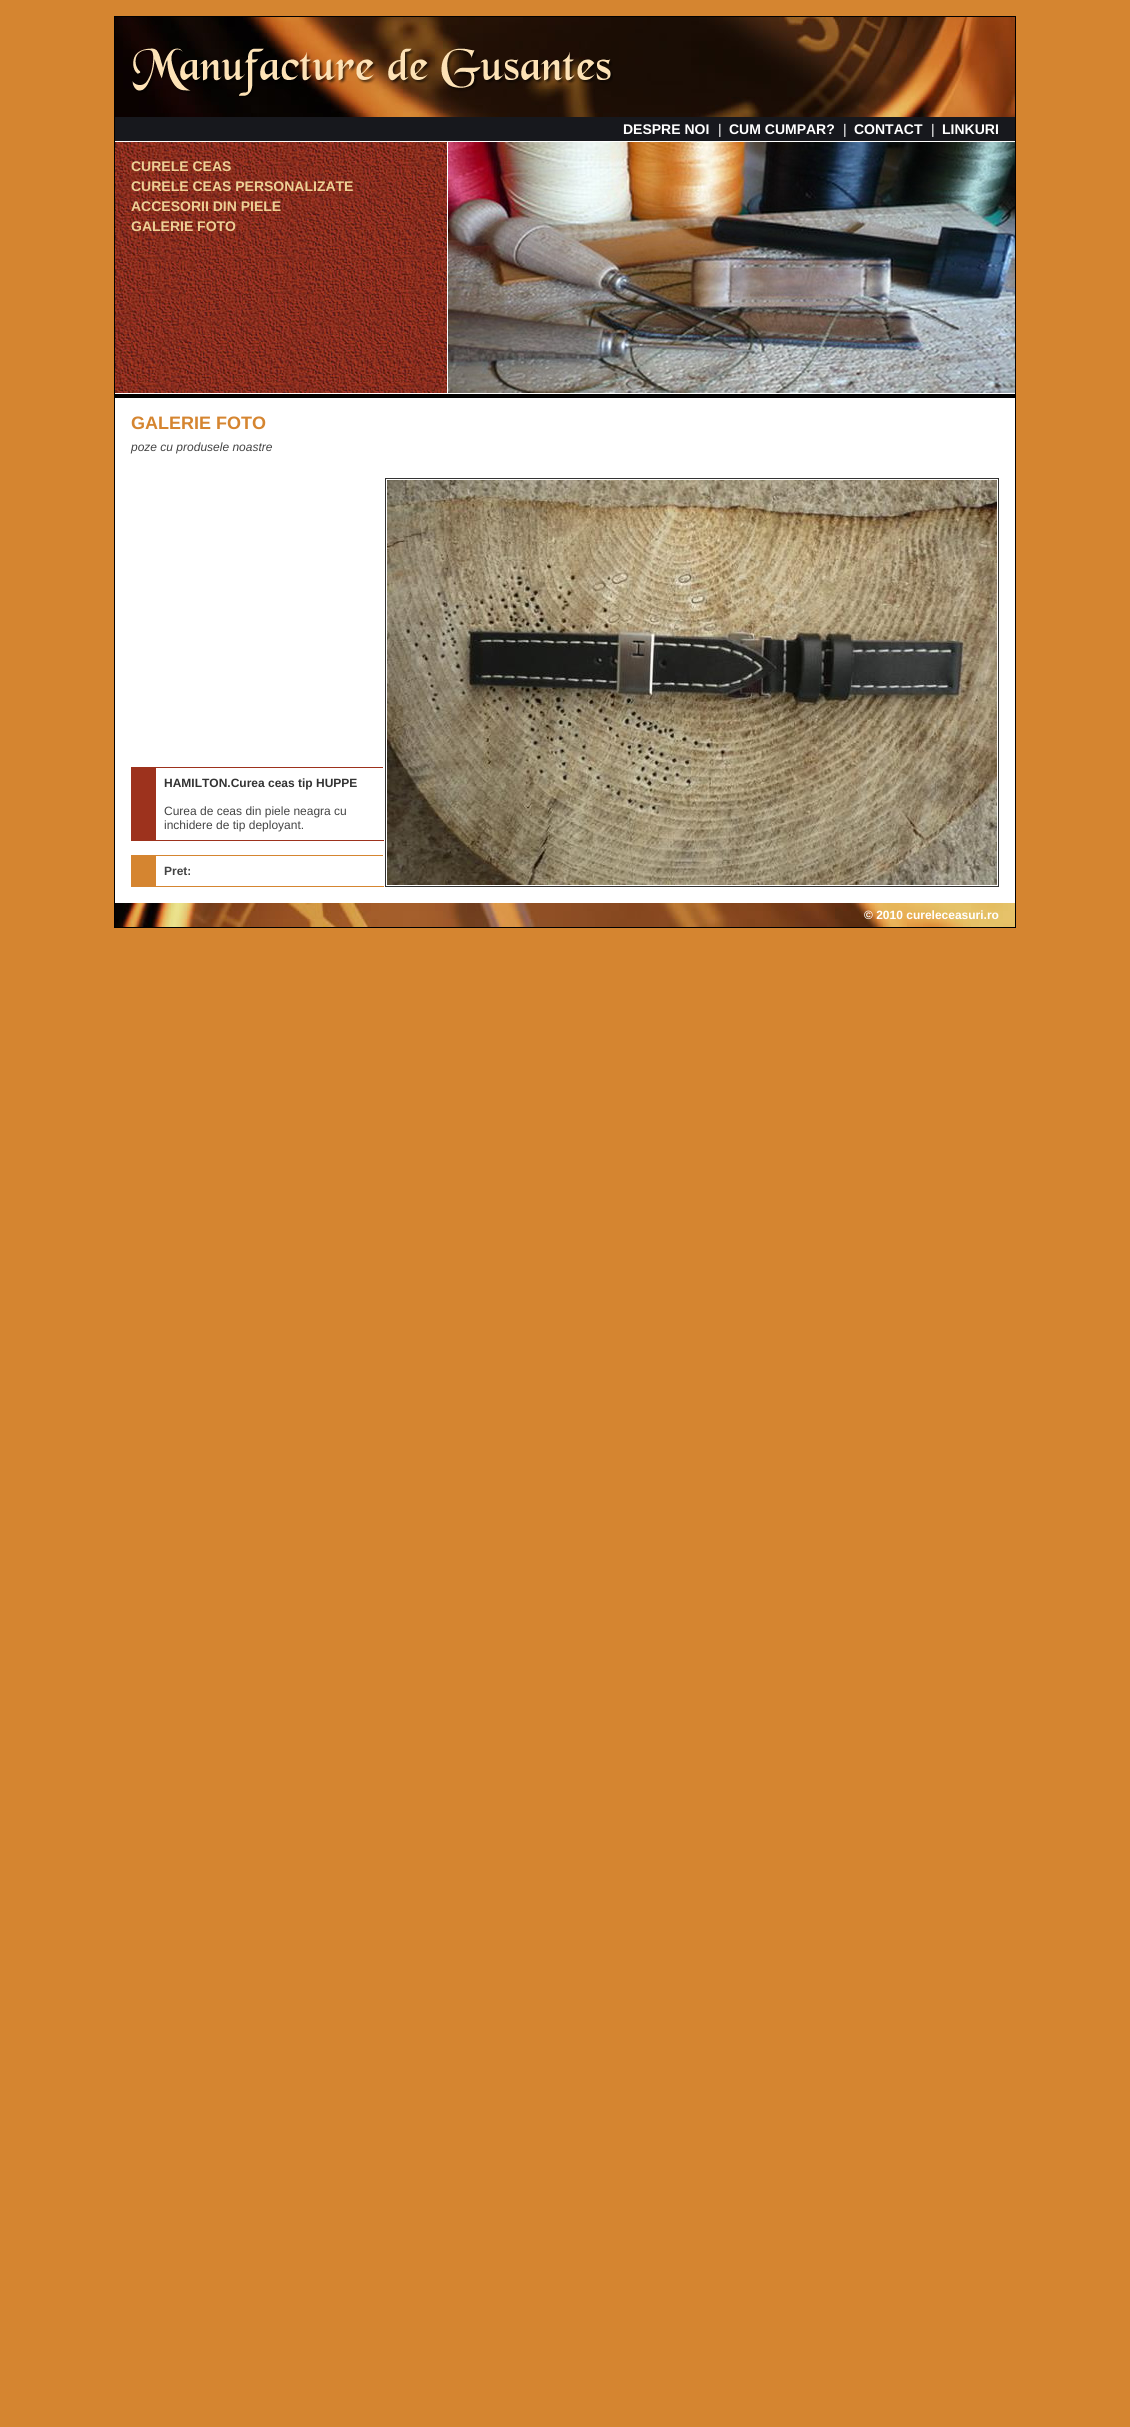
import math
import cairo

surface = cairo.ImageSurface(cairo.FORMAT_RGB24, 1130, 2427)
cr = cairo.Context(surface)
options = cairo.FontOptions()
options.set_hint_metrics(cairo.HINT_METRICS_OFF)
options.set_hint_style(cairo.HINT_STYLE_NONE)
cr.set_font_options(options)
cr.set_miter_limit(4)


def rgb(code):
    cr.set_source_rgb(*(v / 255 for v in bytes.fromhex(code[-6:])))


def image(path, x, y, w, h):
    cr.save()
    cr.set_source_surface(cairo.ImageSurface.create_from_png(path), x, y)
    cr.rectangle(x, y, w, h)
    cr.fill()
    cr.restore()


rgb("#d58530")
cr.paint()
rgb("#ffffff")
cr.rectangle(115, 398, 900, 505)
cr.fill()
cr.rectangle(114.5, 16.5, 901, 911)
rgb("#000000")
cr.set_line_width(1)
cr.stroke()
cr.rectangle(115, 394, 900, 4)
cr.fill()
image("img/1.png", 115, 17, 900, 100)
image("img/2.png", 132, 48, 481, 49)
rgb("#17181d")
cr.rectangle(115, 117, 900, 24)
cr.fill()
image("img/3.png", 115, 142, 332, 251)
for x, y, w, h, color in [
    (115, 141, 900, 1, "#ffffff"),
    (115, 393, 900, 1, "#ffffff"),
    (447, 142, 1, 251, "#ffffff"),
]:
    rgb(color)
    cr.rectangle(x, y, w, h)
    cr.fill()
image("img/4.png", 448, 142, 567, 251)
for x, y, w, h, color in [
    (131, 767, 252, 73, "#9d321d"),
    (131, 840, 253, 1, "#9d321d"),
    (156, 768, 227, 72, "#ffffff"),
    (131, 855, 252, 31, "#d58530"),
    (131, 886, 253, 1, "#d58530"),
    (156, 856, 227, 30, "#ffffff"),
]:
    rgb(color)
    cr.rectangle(x, y, w, h)
    cr.fill()
cr.rectangle(385.5, 478.5, 613, 408)
rgb("#333333")
cr.stroke()
image("img/5.png", 387, 480, 610, 405)
image("img/6.png", 115, 903, 900, 24)
cr.select_font_face("Liberation Sans", cairo.FONT_SLANT_NORMAL, cairo.FONT_WEIGHT_BOLD)
cr.set_font_size(14)
rgb("#ffffff")
cr.move_to(623, 134)
cr.show_text("DESPRE NOI")
cr.select_font_face("Liberation Sans")
cr.move_to(718, 134)
cr.show_text("|")
cr.select_font_face("Liberation Sans", cairo.FONT_SLANT_NORMAL, cairo.FONT_WEIGHT_BOLD)
cr.move_to(729, 134)
cr.show_text("CUM CUMPAR?")
cr.select_font_face("Liberation Sans")
cr.move_to(843, 134)
cr.show_text("|")
cr.select_font_face("Liberation Sans", cairo.FONT_SLANT_NORMAL, cairo.FONT_WEIGHT_BOLD)
cr.move_to(854, 134)
cr.show_text("CONTACT")
cr.select_font_face("Liberation Sans")
cr.move_to(931, 134)
cr.show_text("|")
cr.select_font_face("Liberation Sans", cairo.FONT_SLANT_NORMAL, cairo.FONT_WEIGHT_BOLD)
cr.move_to(942, 134)
cr.show_text("LINKURI")
rgb("#eed196")
for x, y, s in [
    (131, 171, "CURELE CEAS"),
    (131, 191, "CURELE CEAS PERSONALIZATE"),
    (131, 211, "ACCESORII DIN PIELE"),
    (131, 231, "GALERIE FOTO"),
]:
    cr.move_to(x, y)
    cr.show_text(s)
cr.set_font_size(18)
rgb("#d58530")
cr.move_to(131, 429)
cr.show_text("GALERIE FOTO")
cr.select_font_face("Liberation Sans", cairo.FONT_SLANT_ITALIC)
cr.set_font_size(12)
rgb("#444444")
cr.move_to(131, 451)
cr.show_text("poze cu produsele noastre")
cr.select_font_face("Liberation Sans", cairo.FONT_SLANT_NORMAL, cairo.FONT_WEIGHT_BOLD)
rgb("#333333")
cr.move_to(164, 787)
cr.show_text("HAMILTON.Curea ceas tip HUPPE")
cr.select_font_face("Liberation Sans")
rgb("#444444")
cr.move_to(164, 815)
cr.show_text("Curea de ceas din piele neagra cu")
cr.move_to(164, 829)
cr.show_text("inchidere de tip deployant.")
cr.select_font_face("Liberation Sans", cairo.FONT_SLANT_NORMAL, cairo.FONT_WEIGHT_BOLD)
cr.move_to(164, 875)
cr.show_text("Pret:")
rgb("#ffffff")
cr.move_to(864, 919)
cr.show_text("© 2010 cureleceasuri.ro")
surface.write_to_png("page.png")
